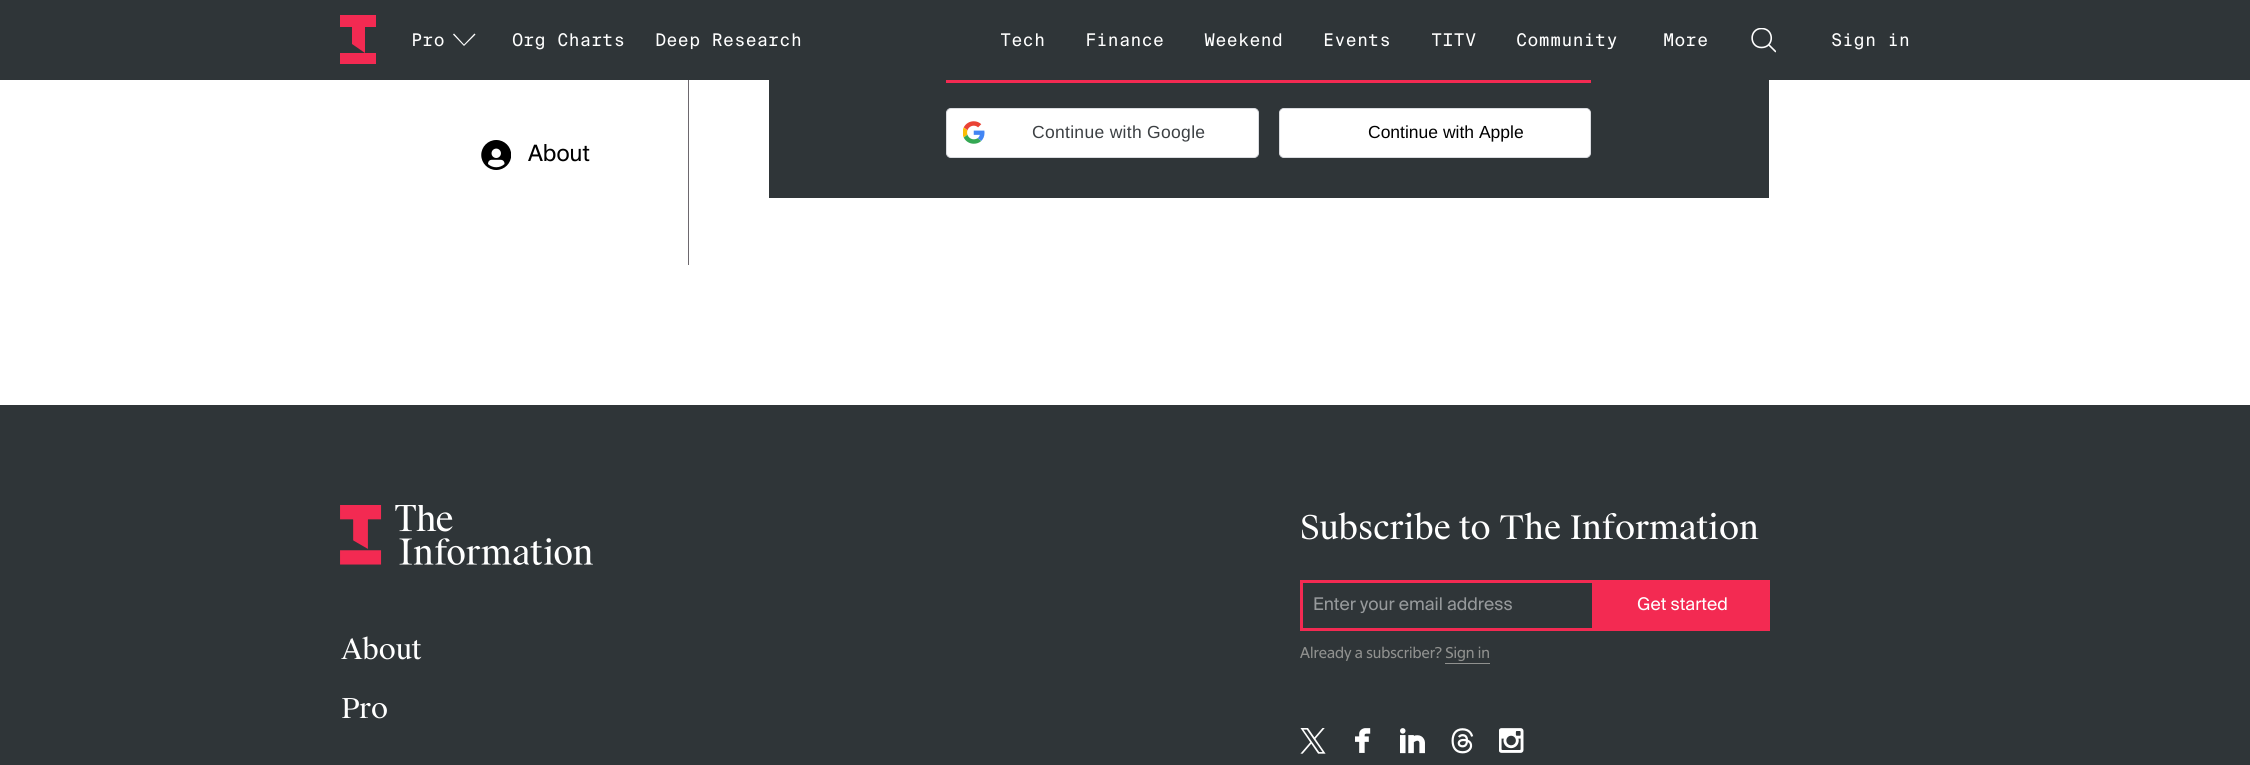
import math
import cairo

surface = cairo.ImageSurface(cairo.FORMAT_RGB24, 2250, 765)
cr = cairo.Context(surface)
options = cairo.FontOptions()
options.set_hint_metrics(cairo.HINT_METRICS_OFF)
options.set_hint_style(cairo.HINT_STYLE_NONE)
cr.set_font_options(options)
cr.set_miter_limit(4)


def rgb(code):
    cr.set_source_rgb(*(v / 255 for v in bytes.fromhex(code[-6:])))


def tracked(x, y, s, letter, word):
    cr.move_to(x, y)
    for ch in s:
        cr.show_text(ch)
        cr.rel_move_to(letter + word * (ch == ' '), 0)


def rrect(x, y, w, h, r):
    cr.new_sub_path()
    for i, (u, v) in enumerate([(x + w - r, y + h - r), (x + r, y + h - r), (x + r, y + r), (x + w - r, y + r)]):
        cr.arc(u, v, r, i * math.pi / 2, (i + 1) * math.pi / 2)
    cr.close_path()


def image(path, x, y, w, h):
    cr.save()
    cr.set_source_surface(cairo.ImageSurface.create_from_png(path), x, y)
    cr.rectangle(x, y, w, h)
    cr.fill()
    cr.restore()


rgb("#ffffff")
cr.paint()
rgb("#2f3538")
cr.rectangle(769, 80, 1000, 118)
cr.fill()
cr.rectangle(947.5, 32.5, 467, 49)
rgb("#f32a52")
cr.set_line_width(3)
cr.stroke()
rgb("#2f3538")
cr.rectangle(0, 0, 2250, 80)
cr.fill()
rgb("#f32a52")
cr.new_path()
cr.move_to(376, 53)
cr.line_to(340, 53)
cr.line_to(340, 64)
cr.line_to(376, 64)
cr.close_path()
cr.move_to(352, 27)
cr.line_to(352, 44)
cr.line_to(365, 53)
cr.line_to(365, 27)
cr.line_to(376, 27)
cr.line_to(376, 15)
cr.line_to(340, 15)
cr.line_to(340, 27)
cr.close_path()
cr.fill()
rgb("#ffffff")
cr.set_fill_rule(cairo.FILL_RULE_EVEN_ODD)
cr.new_path()
cr.move_to(475.5, 34.5)
cr.line_to(464, 46)
cr.line_to(453, 34.5)
cr.line_to(454, 33.5)
cr.line_to(464, 44.5)
cr.line_to(474.5, 33.5)
cr.close_path()
cr.fill()
cr.save()
cr.set_fill_rule(cairo.FILL_RULE_WINDING)
cr.rectangle(1751, 28, 25, 25)
cr.clip()
cr.new_path()
cr.move_to(1769.5, 45.5)
cr.line_to(1775.5, 51.5)
cr.move_to(1761.5, 47.5)
cr.curve_to(1774.5, 47.5, 1774.5, 28.5, 1761.5, 28.5)
cr.curve_to(1749, 28.5, 1749, 47.5, 1761.5, 47.5)
cr.close_path()
cr.set_line_width(1.6)
cr.set_line_cap(cairo.LINE_CAP_ROUND)
cr.set_line_join(cairo.LINE_JOIN_ROUND)
cr.stroke()
cr.restore()
rgb("#6d686e")
cr.rectangle(688, 80, 1, 185)
cr.fill()
rgb("#f32a52")
cr.rectangle(1416, 80, 175, 3)
cr.fill()
rgb("#ffffff")
rrect(946.5, 108.5, 312, 49, 4.5)
cr.fill_preserve()
rgb("#dadce0")
cr.set_line_width(1)
cr.stroke()
image("img/1.png", 963, 121, 22, 23)
rgb("#ffffff")
rrect(1279.5, 108.5, 311, 49, 4.5)
cr.fill_preserve()
rgb("#dadce0")
cr.stroke()
rgb("#ffffff")
rrect(1280, 109, 310, 47, 4)
cr.fill()
image("img/2.png", 481, 140, 30, 30)
rgb("#2f3538")
cr.rectangle(0, 405, 2250, 360)
cr.fill()
cr.rectangle(1301.5, 581.5, 292, 48)
rgb("#f32a52")
cr.set_line_width(3)
cr.stroke()
cr.rectangle(1595, 580, 175, 51)
cr.fill()
rgb("#90918f")
cr.rectangle(1445, 663, 45, 1)
cr.fill()
image("img/3.png", 1300, 728, 26, 26)
image("img/4.png", 1355, 728, 16, 25)
image("img/5.png", 1400, 728, 25, 26)
image("img/6.png", 1451, 728, 23, 26)
image("img/7.png", 1499, 728, 25, 25)
image("img/8.png", 340, 505, 253, 60)
cr.select_font_face("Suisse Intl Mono")
cr.set_font_size(17.5)
rgb("#ffffff")
for x, y, s in [
    (411, 46, "Pro"),
    (512, 46, "Org Charts"),
    (655, 46, "Deep Research"),
    (1000, 46, "Tech"),
    (1085, 46, "Finance"),
    (1204, 46, "Weekend"),
    (1323, 46, "Events"),
    (1431, 46, "TITV"),
    (1516, 46, "Community"),
    (1663, 46, "More"),
    (1831, 46, "Sign in"),
]:
    cr.move_to(x, y)
    cr.show_text(s)
cr.select_font_face("Liberation Sans")
rgb("#3c4043")
tracked(1032, 138, "Continue with Google", 0.3, 0)
rgb("#000000")
cr.move_to(1368, 138)
cr.show_text("Continue with Apple")
cr.select_font_face("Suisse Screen")
cr.set_font_size(22.5)
cr.move_to(528, 161)
cr.show_text("About")
cr.select_font_face("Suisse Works")
cr.set_font_size(32.5)
rgb("#ffffff")
cr.move_to(1300, 539)
cr.show_text("Subscribe to The Information")
cr.select_font_face("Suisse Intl")
cr.set_font_size(17.5)
rgb("#979a9c")
cr.move_to(1313, 610)
cr.show_text("Enter your email address")
rgb("#ffffff")
cr.move_to(1637, 610)
cr.show_text("Get started")
cr.select_font_face("Suisse Screen")
cr.set_font_size(15)
rgb("#90918f")
cr.move_to(1300, 658)
cr.show_text("Already a subscriber? Sign in")
cr.select_font_face("Suisse Works")
cr.set_font_size(27.5)
rgb("#ffffff")
cr.move_to(341, 659)
cr.show_text("About")
cr.move_to(341, 718)
cr.show_text("Pro")
surface.write_to_png("page.png")
